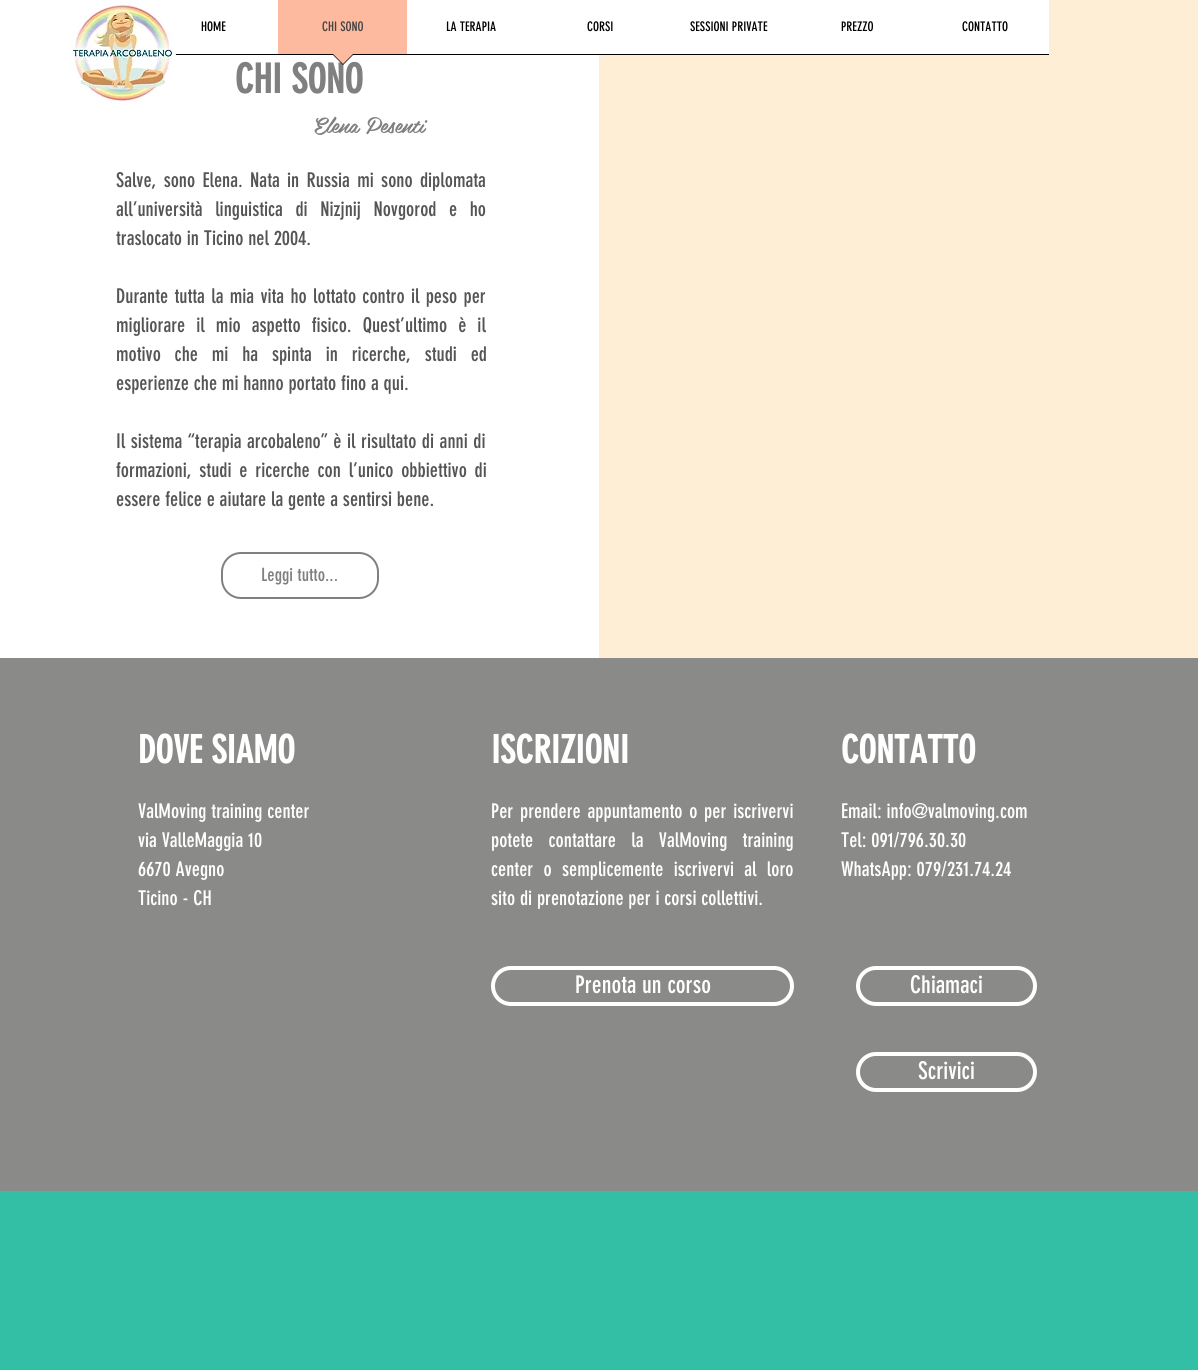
import math
import cairo

surface = cairo.ImageSurface(cairo.FORMAT_RGB24, 1198, 1370)
cr = cairo.Context(surface)
options = cairo.FontOptions()
options.set_hint_metrics(cairo.HINT_METRICS_OFF)
options.set_hint_style(cairo.HINT_STYLE_NONE)
cr.set_font_options(options)
cr.set_miter_limit(4)


def rgb(code):
    cr.set_source_rgb(*(v / 255 for v in bytes.fromhex(code[-6:])))


def tracked(x, y, s, letter, word):
    cr.move_to(x, y)
    for ch in s:
        cr.show_text(ch)
        cr.rel_move_to(letter + word * (ch == ' '), 0)


def rrect(x, y, w, h, r):
    cr.new_sub_path()
    for i, (u, v) in enumerate([(x + w - r, y + h - r), (x + r, y + h - r), (x + r, y + r), (x + w - r, y + r)]):
        cr.arc(u, v, r, i * math.pi / 2, (i + 1) * math.pi / 2)
    cr.close_path()


def image(path, x, y, w, h):
    cr.save()
    cr.set_source_surface(cairo.ImageSurface.create_from_png(path), x, y)
    cr.rectangle(x, y, w, h)
    cr.fill()
    cr.restore()


rgb("#32bfa5")
cr.paint()
for x, y, w, h, color in [
    (0, 0, 599, 658, "#ffffff"),
    (599, 0, 599, 658, "#ffeed6"),
    (175, 54, 874, 1, "#000000"),
]:
    rgb(color)
    cr.rectangle(x, y, w, h)
    cr.fill()
image("img/1.png", 69, 0, 107, 104)
rgb("#ffffff")
cr.rectangle(599, 0, 450, 54)
cr.fill()
rgb("#feba9e")
cr.rectangle(278, 0, 129, 54)
cr.fill()
rrect(222, 553, 156, 45, 19)
rgb("#808080")
cr.stroke()
rgb("#8a8a88")
cr.rectangle(0, 658, 1198, 533)
cr.fill()
rrect(493, 968, 299, 36, 18)
rgb("#ffffff")
cr.set_line_width(4)
cr.stroke()
rrect(858, 968, 177, 36, 18)
cr.stroke()
rrect(858, 1054, 177, 36, 18)
cr.stroke()
cr.select_font_face("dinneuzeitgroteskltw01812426")
cr.set_font_size(13)
rgb("#000000")
cr.move_to(201, 31)
cr.show_text("HOME")
rgb("#444444")
cr.move_to(322, 31)
cr.show_text("CHI SONO")
rgb("#000000")
for x, y, s in [
    (446, 31, "LA TERAPIA"),
    (587, 31, "CORSI"),
    (690, 31, "SESSIONI PRIVATE"),
    (841, 31, "PREZZO"),
    (962, 31, "CONTATTO"),
]:
    cr.move_to(x, y)
    cr.show_text(s)
cr.select_font_face("dinneuzeitgroteskltw01812426", cairo.FONT_SLANT_NORMAL, cairo.FONT_WEIGHT_BOLD)
cr.set_font_size(40)
rgb("#808080")
cr.move_to(235, 93)
cr.show_text("CHI SONO")
rgb("#000000")
cr.new_path()
cr.move_to(332, 54)
cr.line_to(354, 54)
cr.line_to(343, 65)
cr.close_path()
cr.fill()
rgb("#feba9e")
cr.new_path()
cr.move_to(333, 54)
cr.line_to(353, 54)
cr.line_to(343, 64)
cr.close_path()
cr.fill()
cr.select_font_face("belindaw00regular")
cr.set_font_size(22)
rgb("#808080")
cr.move_to(314, 133)
cr.show_text("Elena Pesenti")
cr.select_font_face("dinneuzeitgroteskltw01812426")
cr.set_font_size(20)
rgb("#555555")
tracked(116, 187, "Salve, sono Elena. Nata in Russia mi sono diplomata", 0, 2.5)
tracked(116, 216, "all’università linguistica di Nizjnij Novgorod e ho", 0, 7.75)
cr.move_to(116, 245)
cr.show_text("traslocato in Ticino nel 2004.")
tracked(116, 303, "Durante tutta la mia vita ho lottato contro il peso per", 0, 1.5)
tracked(116, 332, "migliorare il mio aspetto fisico. Quest’ultimo è il", 0, 6.25)
tracked(116, 361, "motivo che mi ha spinta in ricerche, studi ed", 0, 9)
cr.move_to(116, 390)
cr.show_text("esperienze che mi hanno portato fino a qui.")
tracked(116, 448, "Il sistema “terapia arcobaleno” è il risultato di anni di", 0, 0.75)
tracked(116, 477, "formazioni, studi e ricerche con l’unico obbiettivo di", 0, 3)
cr.move_to(116, 506)
cr.show_text("essere felice e aiutare la gente a sentirsi bene.")
cr.set_font_size(18)
rgb("#808080")
cr.move_to(261, 581)
cr.show_text("Leggi tutto...")
cr.select_font_face("dinneuzeitgroteskltw01812426", cairo.FONT_SLANT_NORMAL, cairo.FONT_WEIGHT_BOLD)
cr.set_font_size(38)
rgb("#ffffff")
for x, y, s in [
    (138, 763, "DOVE SIAMO"),
    (491, 763, "ISCRIZIONI"),
    (841, 763, "CONTATTO"),
]:
    cr.move_to(x, y)
    cr.show_text(s)
cr.select_font_face("dinneuzeitgroteskltw01812426")
cr.set_font_size(20)
for x, y, s in [
    (138, 818, "ValMoving training center"),
    (138, 847, "via ValleMaggia 10"),
    (138, 876, "6670 Avegno"),
    (138, 905, "Ticino - CH"),
]:
    cr.move_to(x, y)
    cr.show_text(s)
tracked(491, 818, "Per prendere appuntamento o per iscrivervi", 0, 2)
tracked(491, 847, "potete contattare la ValMoving training", 0, 10.5)
tracked(491, 876, "center o semplicemente iscrivervi al loro", 0, 5.5)
for x, y, s in [
    (491, 905, "sito di prenotazione per i corsi collettivi."),
    (841, 818, "Email: info@valmoving.com"),
    (841, 847, "Tel: 091/796.30.30"),
    (841, 876, "WhatsApp: 079/231.74.24"),
]:
    cr.move_to(x, y)
    cr.show_text(s)
cr.set_font_size(24)
for x, y, s in [
    (575, 993, "Prenota un corso"),
    (910, 993, "Chiamaci"),
    (918, 1079, "Scrivici"),
]:
    cr.move_to(x, y)
    cr.show_text(s)
surface.write_to_png("page.png")
